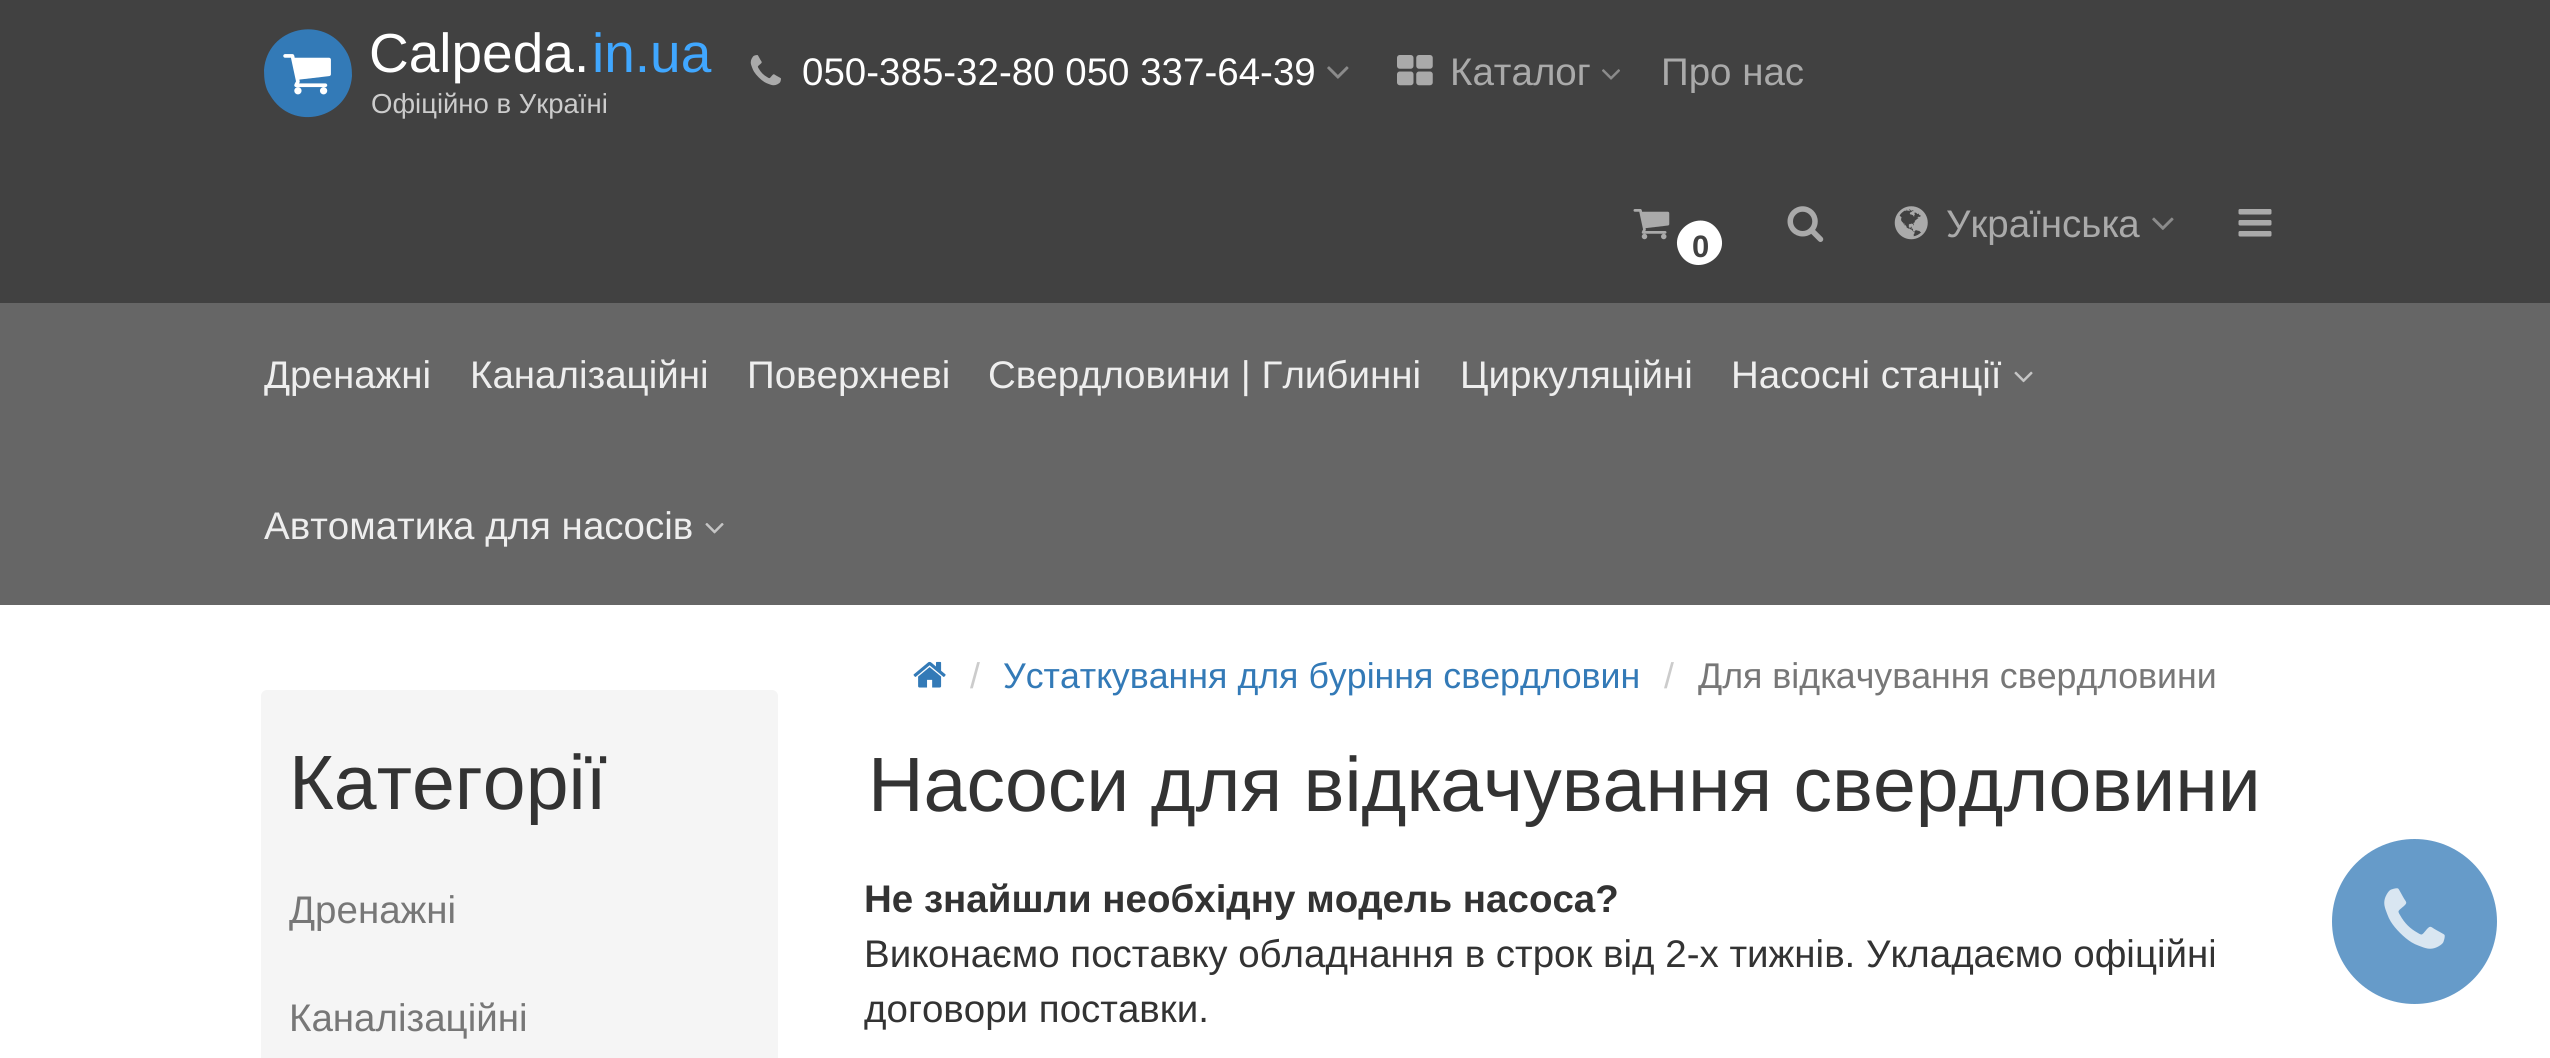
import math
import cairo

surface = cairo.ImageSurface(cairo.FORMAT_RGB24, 2550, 1058)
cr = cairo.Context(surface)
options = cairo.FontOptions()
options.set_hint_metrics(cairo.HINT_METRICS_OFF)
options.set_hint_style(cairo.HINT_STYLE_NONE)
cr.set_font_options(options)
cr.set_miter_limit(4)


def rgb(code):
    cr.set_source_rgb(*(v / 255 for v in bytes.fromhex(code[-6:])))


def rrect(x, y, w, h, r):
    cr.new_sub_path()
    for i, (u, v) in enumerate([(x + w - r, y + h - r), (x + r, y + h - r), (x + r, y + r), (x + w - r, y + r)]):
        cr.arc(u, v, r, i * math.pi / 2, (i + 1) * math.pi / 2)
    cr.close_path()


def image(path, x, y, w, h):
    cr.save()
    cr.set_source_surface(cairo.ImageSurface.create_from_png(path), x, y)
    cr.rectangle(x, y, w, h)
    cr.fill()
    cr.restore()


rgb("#ffffff")
cr.paint()
rgb("#414141")
cr.rectangle(0, 0, 2550, 303)
cr.fill()
rgb("#337ab7")
cr.new_path()
cr.move_to(346, 51)
cr.curve_to(351, 59, 352, 68, 352, 76)
cr.curve_to(349, 119, 292, 133, 270, 95)
cr.curve_to(265, 88, 264, 79, 264, 70)
cr.curve_to(267, 27, 324, 14, 346, 51)
cr.close_path()
cr.fill()
image("img/1.png", 283, 54, 48, 41)
image("img/2.png", 750, 55, 31, 31)
image("img/3.png", 1327, 66, 22, 13)
image("img/4.png", 1397, 55, 36, 31)
image("img/5.png", 1602, 69, 18, 11)
image("img/6.png", 1633, 209, 37, 31)
rgb("#ffffff")
cr.new_path()
cr.move_to(1719, 232)
cr.curve_to(1733, 257, 1695, 279, 1680, 254)
cr.curve_to(1666, 229, 1704, 206, 1719, 232)
cr.close_path()
cr.fill()
image("img/7.png", 1787, 206, 37, 36)
image("img/8.png", 1894, 206, 34, 34)
image("img/9.png", 2152, 217, 22, 13)
image("img/10.png", 2238, 209, 34, 28)
rgb("#666666")
cr.rectangle(0, 303, 2550, 302)
cr.fill()
image("img/11.png", 2014, 371, 19, 12)
image("img/12.png", 705, 523, 19, 11)
rgb("#f5f5f5")
rrect(261, 690, 517, 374, 6)
cr.fill()
image("img/13.png", 913, 661, 33, 27)
rgb("#669bc9")
cr.arc(2414.5, 921.5, 82.5, 0, 2 * math.pi)
cr.fill()
image("img/14.png", 2384, 888, 61, 61)
cr.select_font_face("Liberation Sans")
cr.set_font_size(55)
rgb("#ffffff")
cr.move_to(369, 72)
cr.show_text("Calpeda.")
rgb("#40a7ff")
cr.move_to(592, 72)
cr.show_text("in.ua")
cr.set_font_size(27.5)
rgb("#cccccc")
cr.move_to(371, 113)
cr.show_text("Офіційно в Україні")
cr.set_font_size(38.5)
rgb("#ffffff")
cr.move_to(802, 85)
cr.show_text("050-385-32-80 050 337-64-39")
rgb("#aaaaaa")
cr.move_to(1450, 85)
cr.show_text("Каталог")
cr.move_to(1661, 85)
cr.show_text("Про нас")
cr.select_font_face("Liberation Sans", cairo.FONT_SLANT_NORMAL, cairo.FONT_WEIGHT_BOLD)
cr.set_font_size(31)
rgb("#414141")
cr.move_to(1692, 257)
cr.show_text("0")
cr.select_font_face("Liberation Sans")
cr.set_font_size(38.5)
rgb("#aaaaaa")
cr.move_to(1946, 237)
cr.show_text("Українська")
rgb("#eeeeee")
for x, y, s in [
    (264, 388, "Дренажні"),
    (470, 388, "Каналізаційні"),
    (747, 388, "Поверхневі"),
    (988, 388, "Свердловини | Глибинні"),
    (1460, 388, "Циркуляційні"),
    (1731, 388, "Насосні станції"),
    (264, 539, "Автоматика для насосів"),
]:
    cr.move_to(x, y)
    cr.show_text(s)
cr.set_font_size(77)
rgb("#333333")
cr.move_to(289, 809)
cr.show_text("Категорії")
cr.set_font_size(38.5)
rgb("#777777")
cr.move_to(289, 923)
cr.show_text("Дренажні")
cr.move_to(289, 1031)
cr.show_text("Каналізаційні")
cr.set_font_size(35.75)
rgb("#cccccc")
cr.move_to(970, 688)
cr.show_text("/")
rgb("#337ab7")
cr.move_to(1003, 688)
cr.show_text("Устаткування для буріння свердловин")
rgb("#cccccc")
cr.move_to(1664, 688)
cr.show_text("/")
rgb("#777777")
cr.move_to(1698, 688)
cr.show_text("Для відкачування свердловини")
cr.set_font_size(77)
rgb("#333333")
cr.move_to(868, 811)
cr.show_text("Насоси для відкачування свердловини")
cr.select_font_face("Liberation Sans", cairo.FONT_SLANT_NORMAL, cairo.FONT_WEIGHT_BOLD)
cr.set_font_size(38.5)
cr.move_to(864, 912)
cr.show_text("Не знайшли необхідну модель насоса?")
cr.select_font_face("Liberation Sans")
cr.move_to(864, 967)
cr.show_text("Виконаємо поставку обладнання в строк від 2-х тижнів. Укладаємо офіційні")
cr.move_to(864, 1022)
cr.show_text("договори поставки.")
surface.write_to_png("page.png")
